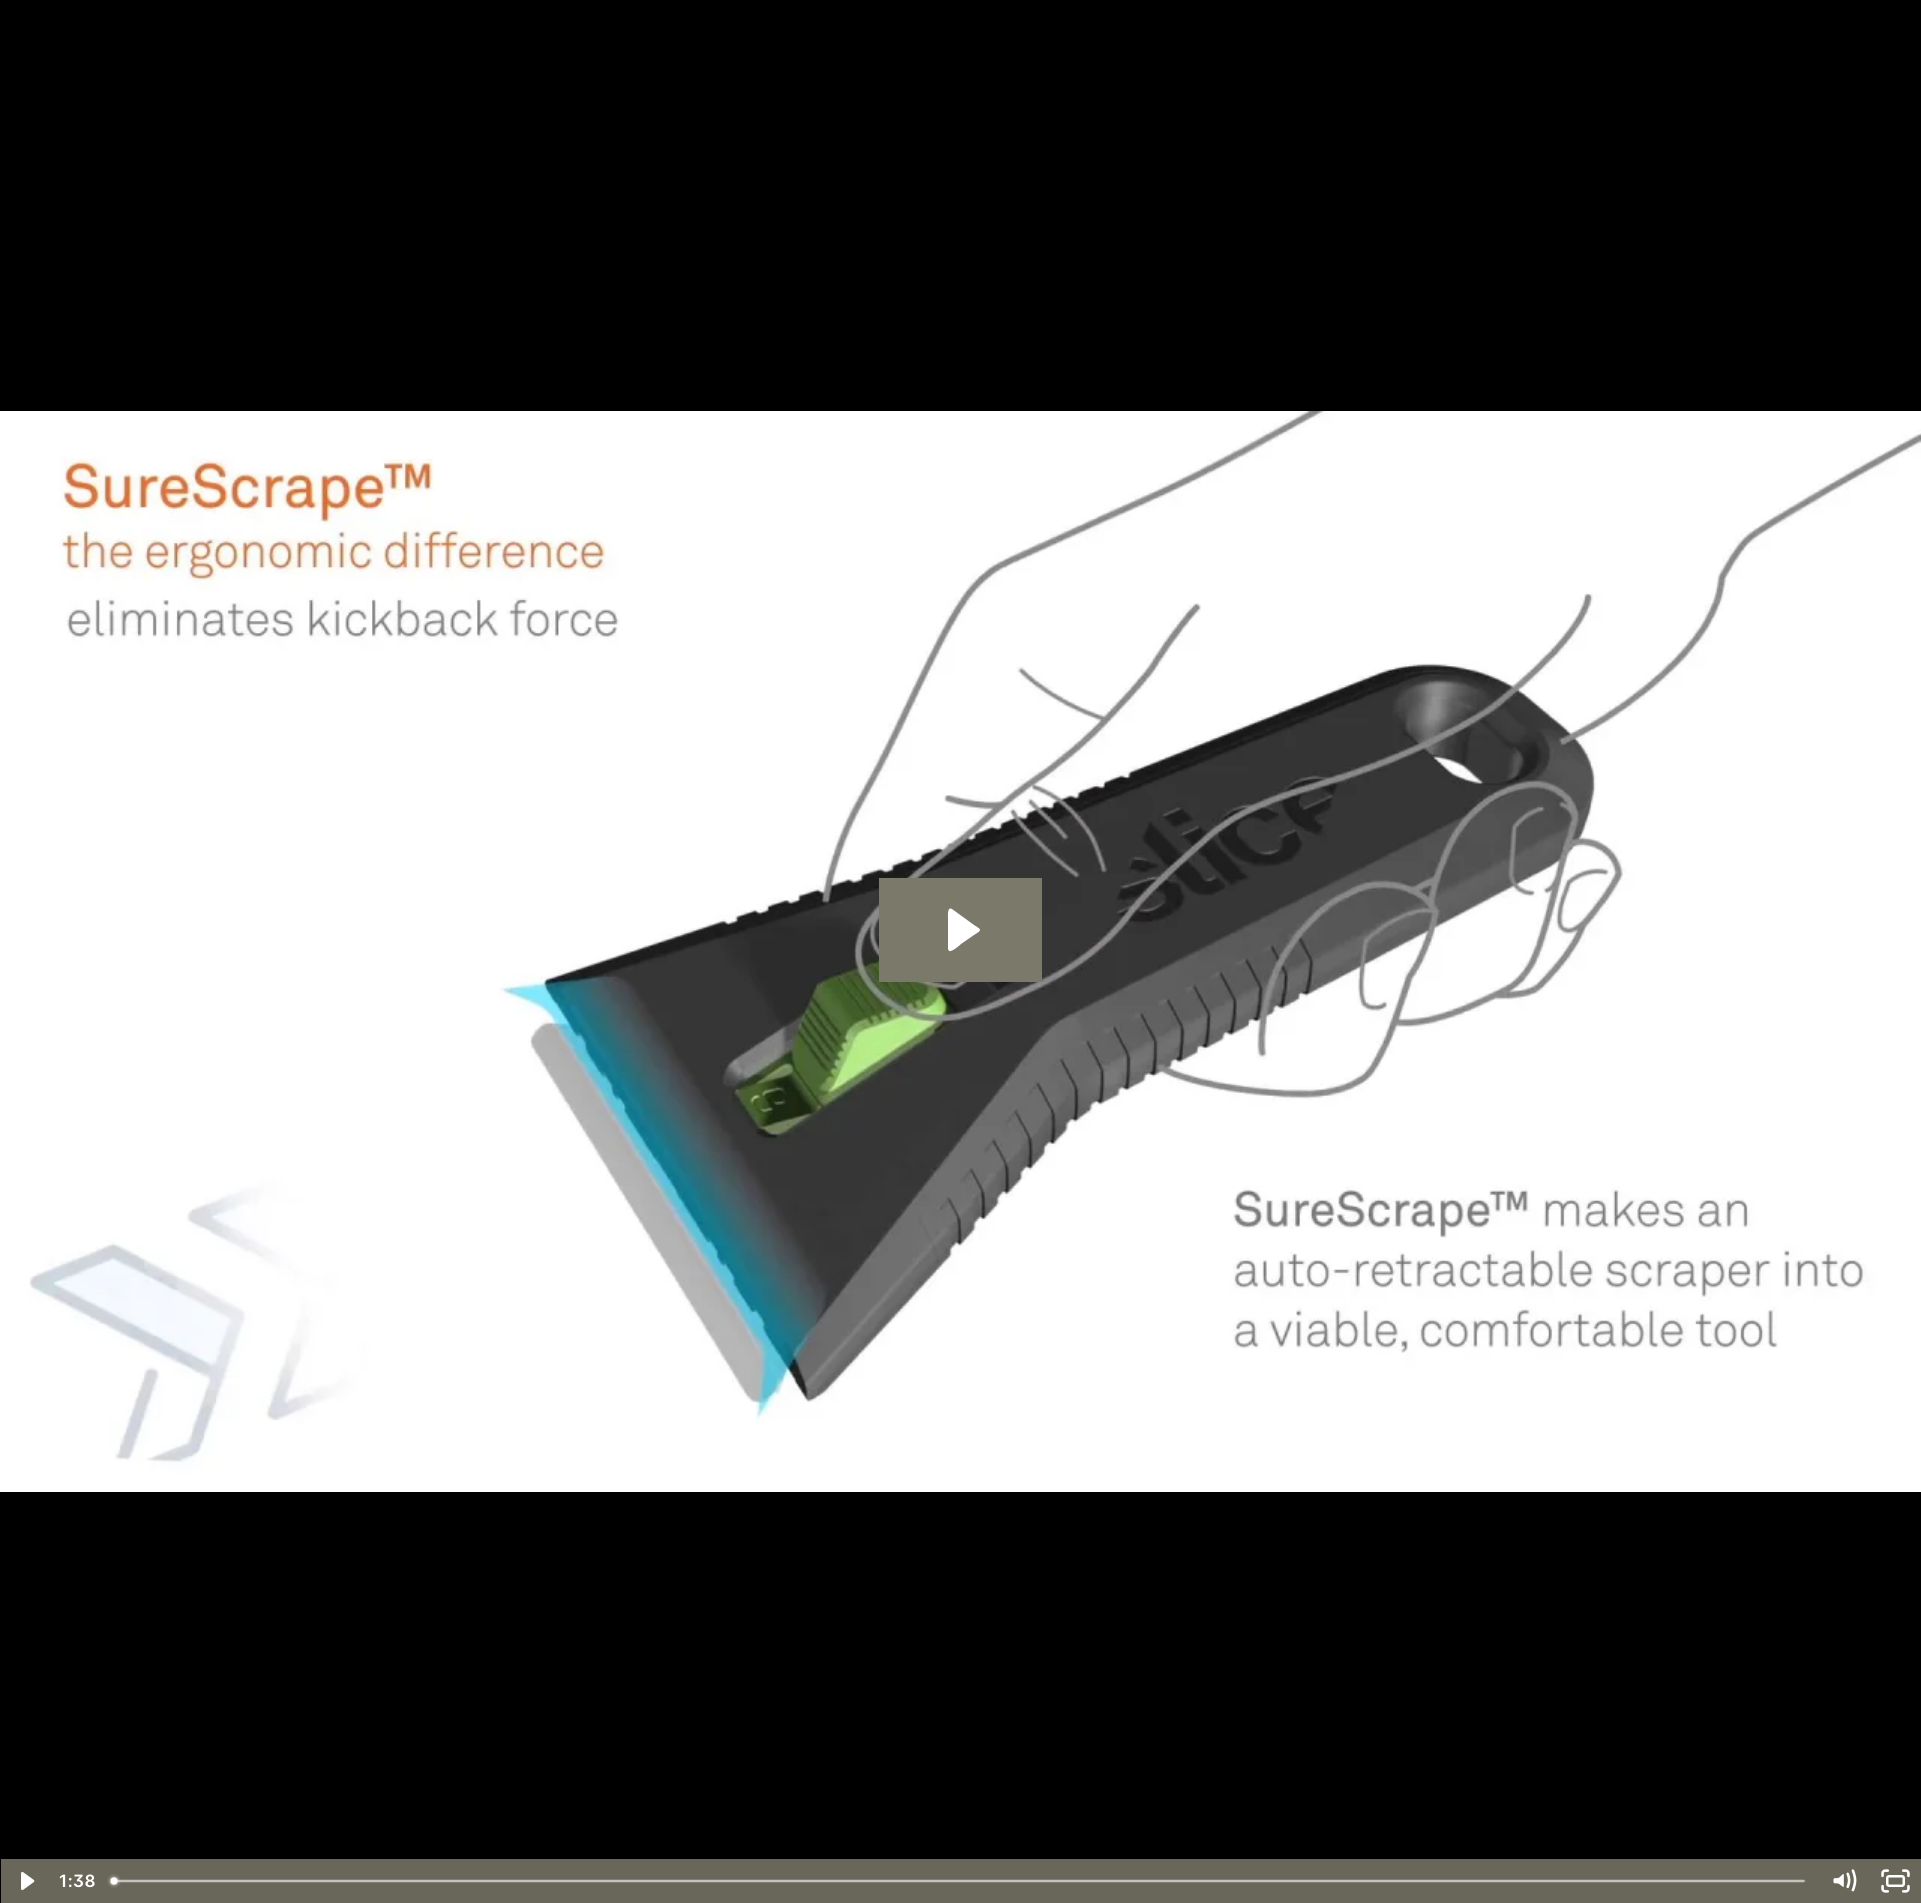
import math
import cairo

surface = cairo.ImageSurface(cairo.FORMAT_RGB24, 1921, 1903)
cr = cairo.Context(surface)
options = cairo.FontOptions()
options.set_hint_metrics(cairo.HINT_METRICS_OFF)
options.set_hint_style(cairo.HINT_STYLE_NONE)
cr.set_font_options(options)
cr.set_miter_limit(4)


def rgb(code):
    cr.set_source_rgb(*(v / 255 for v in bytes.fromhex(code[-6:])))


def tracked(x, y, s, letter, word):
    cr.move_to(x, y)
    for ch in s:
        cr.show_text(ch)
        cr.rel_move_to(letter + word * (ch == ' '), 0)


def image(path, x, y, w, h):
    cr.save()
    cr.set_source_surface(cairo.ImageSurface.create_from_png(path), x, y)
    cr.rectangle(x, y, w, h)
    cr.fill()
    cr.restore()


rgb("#000000")
cr.paint()
image("img/1.png", 0, 411, 1921, 1081)
rgb("#7b796a")
cr.rectangle(879, 878, 163, 104)
cr.fill()
rgb("#ffffff")
cr.set_fill_rule(cairo.FILL_RULE_EVEN_ODD)
cr.new_path()
cr.move_to(952, 909)
cr.curve_to(947, 906, 948, 917, 948, 918)
cr.line_to(948, 949)
cr.line_to(949, 951)
cr.curve_to(952, 952, 959, 946, 961, 944)
cr.line_to(974, 935)
cr.curve_to(982, 930, 982, 930, 974, 925)
cr.close_path()
cr.fill()
rgb("#69675a")
cr.rectangle(1, 1859, 1920, 44)
cr.fill()
image("img/2.png", 21, 1871, 14, 20)
image("img/3.png", 107, 1874, 1699, 14)
image("img/4.png", 1833, 1869, 24, 23)
image("img/5.png", 1881, 1869, 29, 24)
cr.select_font_face("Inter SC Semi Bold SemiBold")
cr.set_font_size(17)
rgb("#ffffff")
tracked(59, 1887, "1:38", 0.5, 0)
surface.write_to_png("page.png")
